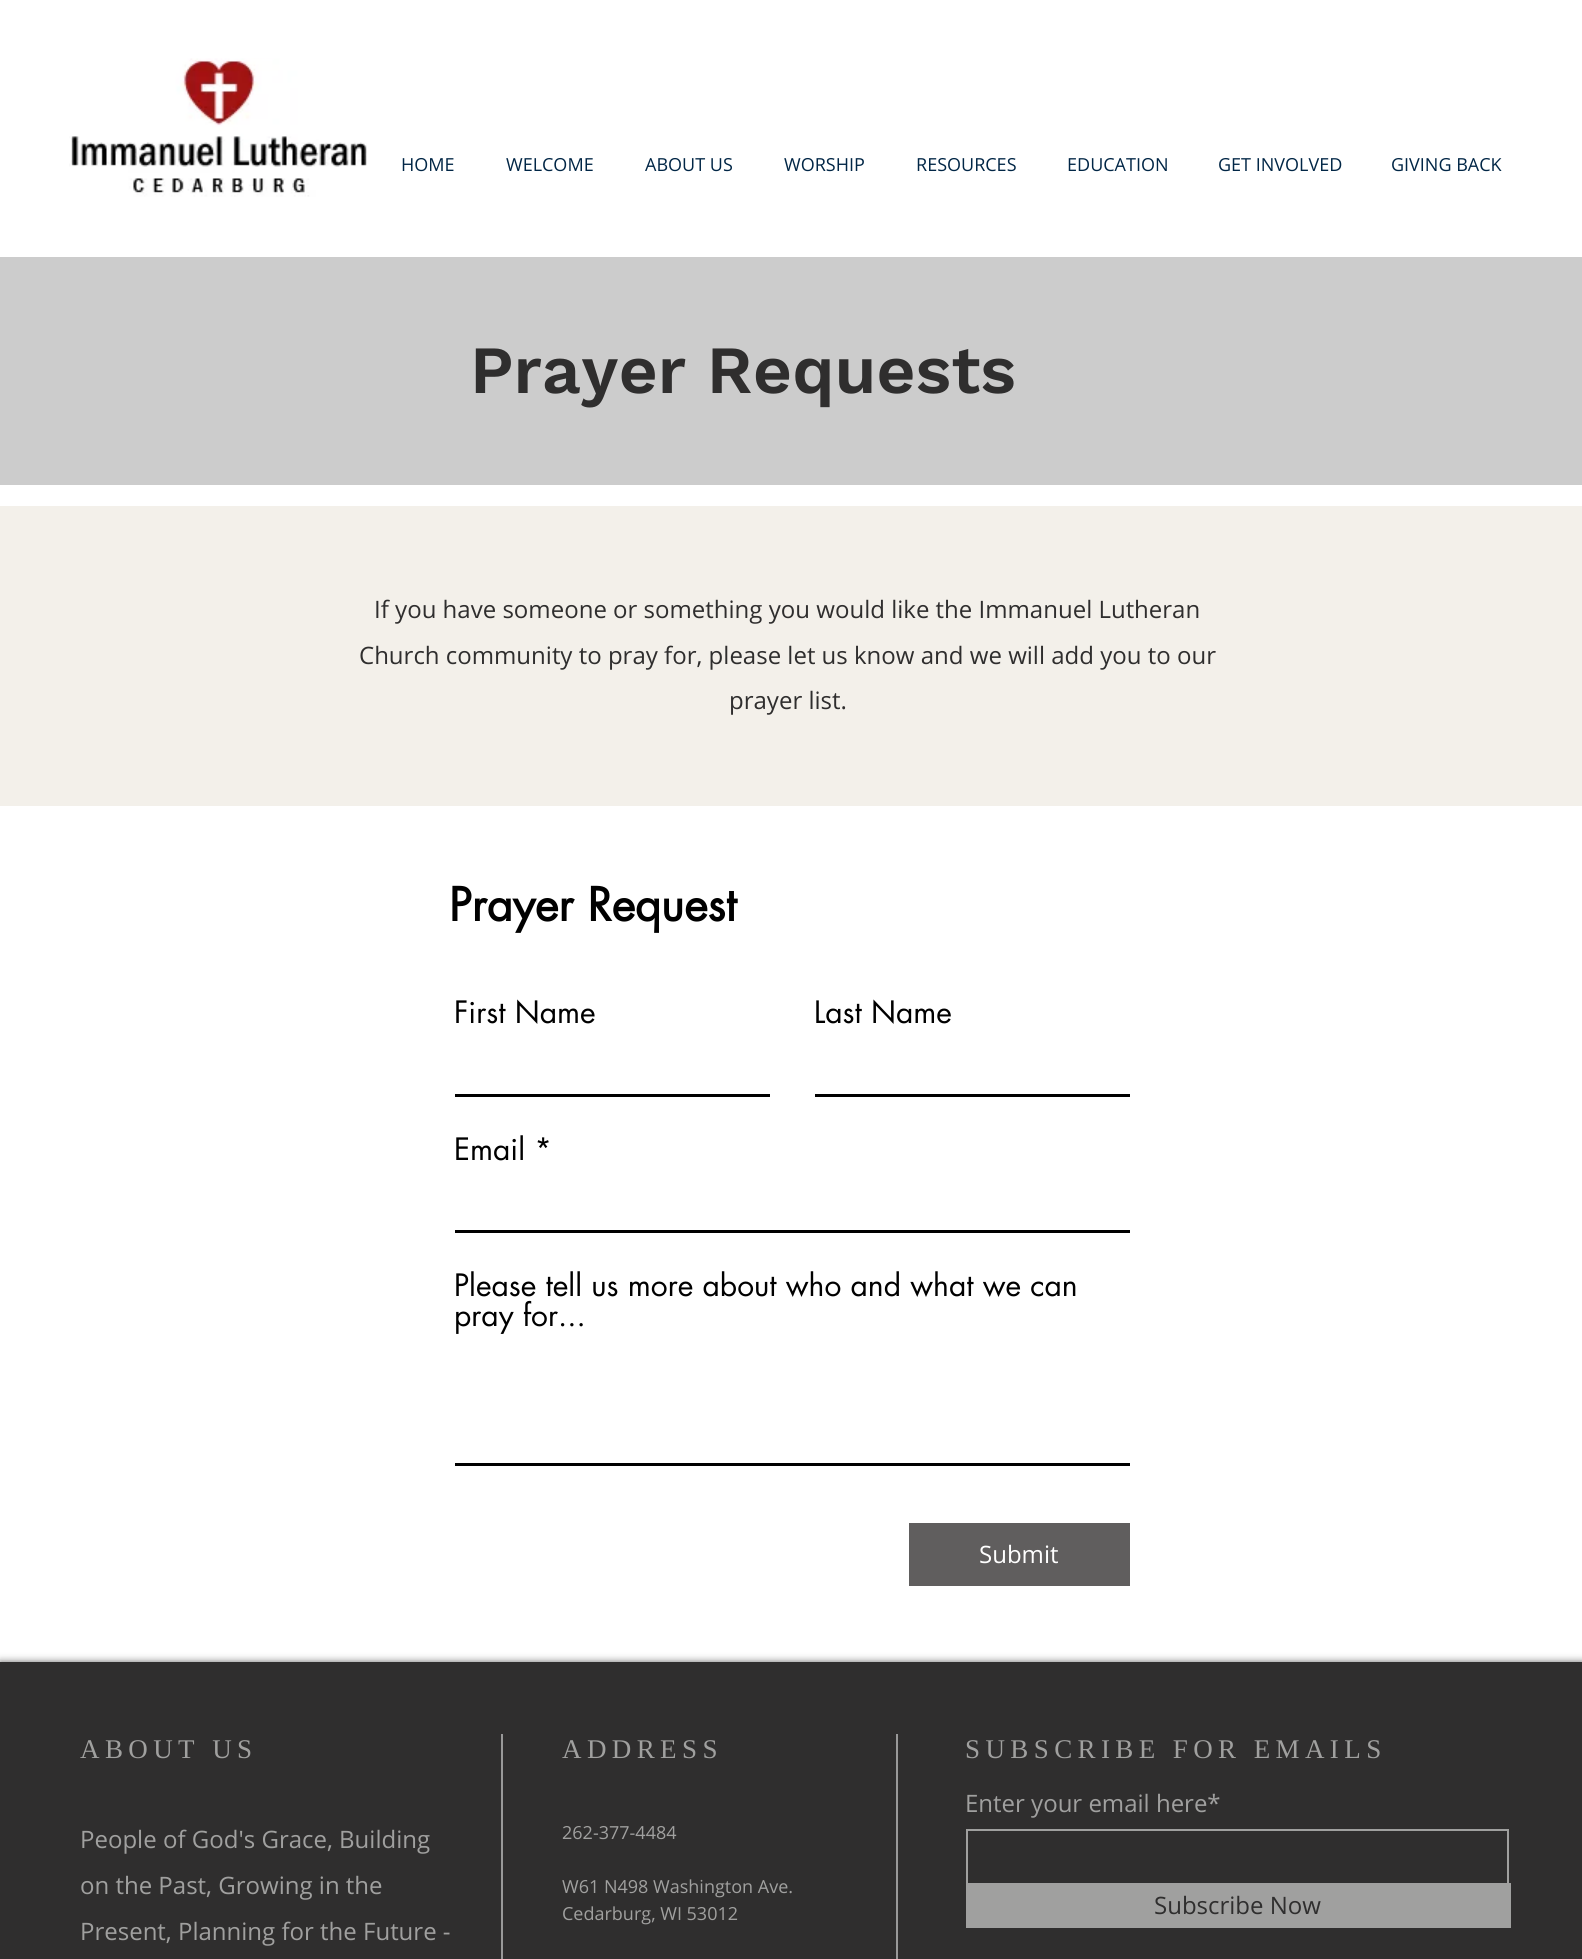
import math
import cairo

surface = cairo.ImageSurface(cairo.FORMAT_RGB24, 1582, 1959)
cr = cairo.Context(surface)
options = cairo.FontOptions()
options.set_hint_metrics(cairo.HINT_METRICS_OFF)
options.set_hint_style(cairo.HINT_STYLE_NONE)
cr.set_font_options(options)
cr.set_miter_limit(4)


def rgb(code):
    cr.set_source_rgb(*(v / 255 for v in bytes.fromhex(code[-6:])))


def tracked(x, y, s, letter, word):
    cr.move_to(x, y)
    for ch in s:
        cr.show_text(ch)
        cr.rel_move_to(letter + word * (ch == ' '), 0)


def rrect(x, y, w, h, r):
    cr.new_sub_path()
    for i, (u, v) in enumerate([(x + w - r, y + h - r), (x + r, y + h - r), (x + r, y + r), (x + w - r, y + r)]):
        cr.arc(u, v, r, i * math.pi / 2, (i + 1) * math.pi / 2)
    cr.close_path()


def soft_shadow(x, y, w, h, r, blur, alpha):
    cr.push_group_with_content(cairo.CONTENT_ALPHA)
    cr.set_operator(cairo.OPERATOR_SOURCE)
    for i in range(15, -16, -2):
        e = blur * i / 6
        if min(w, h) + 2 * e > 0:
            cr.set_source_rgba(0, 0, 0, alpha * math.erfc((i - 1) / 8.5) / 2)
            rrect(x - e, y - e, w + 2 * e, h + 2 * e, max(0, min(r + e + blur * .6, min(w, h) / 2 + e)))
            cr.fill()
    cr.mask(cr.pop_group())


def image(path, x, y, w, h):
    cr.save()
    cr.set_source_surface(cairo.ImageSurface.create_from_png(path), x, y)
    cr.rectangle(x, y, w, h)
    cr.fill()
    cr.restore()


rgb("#ffffff")
cr.paint()
image("img/1.png", 69, 58, 298, 139)
for x, y, w, h, color in [
    (0, 257, 1582, 228, "#cccccc"),
    (0, 506, 1582, 300, "#f3f0ea"),
    (455, 1094, 315, 3, "#000000"),
    (815, 1094, 315, 3, "#000000"),
    (455, 1230, 675, 3, "#000000"),
    (455, 1463, 675, 3, "#000000"),
    (909, 1523, 221, 63, "#605e5e"),
]:
    rgb(color)
    cr.rectangle(x, y, w, h)
    cr.fill()
rgb("#2f2e2e")
soft_shadow(0, 1662, 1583, 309, 0, 4, 0.72)
for x, y, w, h, color in [
    (0, 1662, 1582, 297, "#2f2e2e"),
    (501, 1734, 2, 225, "#999999"),
    (896, 1734, 2, 225, "#999999"),
]:
    rgb(color)
    cr.rectangle(x, y, w, h)
    cr.fill()
cr.rectangle(967, 1830, 541, 56)
rgb("#a0a09f")
cr.stroke()
cr.rectangle(966, 1883, 545, 45)
cr.fill()
cr.select_font_face("Open Sans")
cr.set_font_size(18)
rgb("#012646")
for x, y, s in [
    (401, 171, "HOME"),
    (506, 171, "WELCOME"),
    (645, 171, "ABOUT US"),
    (784, 171, "WORSHIP"),
    (916, 171, "RESOURCES"),
    (1067, 171, "EDUCATION"),
    (1218, 171, "GET INVOLVED"),
    (1391, 171, "GIVING BACK"),
]:
    cr.move_to(x, y)
    cr.show_text(s)
cr.select_font_face("Work Sans SemiBold")
cr.set_font_size(67.5)
rgb("#2f2e2e")
cr.move_to(470, 393)
cr.show_text("Prayer Requests")
cr.select_font_face("Open Sans")
cr.set_font_size(24)
for x, y, s in [
    (374, 618, "If you have someone or something you would like the Immanuel Lutheran"),
    (359, 664, "Church community to pray for, please let us know and we will add you to our"),
    (729, 709, "prayer list."),
]:
    cr.move_to(x, y)
    cr.show_text(s)
cr.select_font_face("futura", cairo.FONT_SLANT_NORMAL, cairo.FONT_WEIGHT_BOLD)
cr.set_font_size(45)
rgb("#000000")
cr.move_to(449, 921)
cr.show_text("Prayer Request")
cr.select_font_face("futura")
cr.set_font_size(30)
for x, y, s in [
    (454, 1023, "First Name"),
    (814, 1023, "Last Name"),
    (454, 1160, "Email *"),
    (454, 1296, "Please tell us more about who and what we can"),
    (454, 1326, "pray for..."),
]:
    cr.move_to(x, y)
    cr.show_text(s)
cr.select_font_face("Open Sans")
cr.set_font_size(24)
rgb("#ffffff")
cr.move_to(979, 1563)
cr.show_text("Submit")
cr.select_font_face("Liberation Serif")
cr.set_font_size(27)
rgb("#a0a09f")
for x, y, s in [
    (80, 1758, "ABOUT US"),
    (562, 1758, "ADDRESS"),
    (965, 1758, "SUBSCRIBE FOR EMAILS"),
]:
    tracked(x, y, s, 5.4, 0)
cr.select_font_face("Open Sans")
cr.set_font_size(24)
cr.move_to(965, 1812)
cr.show_text("Enter your email here*")
rgb("#2f2e2e")
cr.move_to(1154, 1914)
cr.show_text("Subscribe Now")
rgb("#a0a09f")
for x, y, s in [
    (80, 1848, "People of God's Grace, Building"),
    (80, 1894, "on the Past, Growing in the"),
    (80, 1940, "Present, Planning for the Future -"),
]:
    cr.move_to(x, y)
    cr.show_text(s)
cr.set_font_size(18)
for x, y, s in [
    (562, 1839, "262-377-4484"),
    (562, 1893, "W61 N498 Washington Ave."),
    (562, 1920, "Cedarburg, WI 53012"),
]:
    cr.move_to(x, y)
    cr.show_text(s)
surface.write_to_png("page.png")
